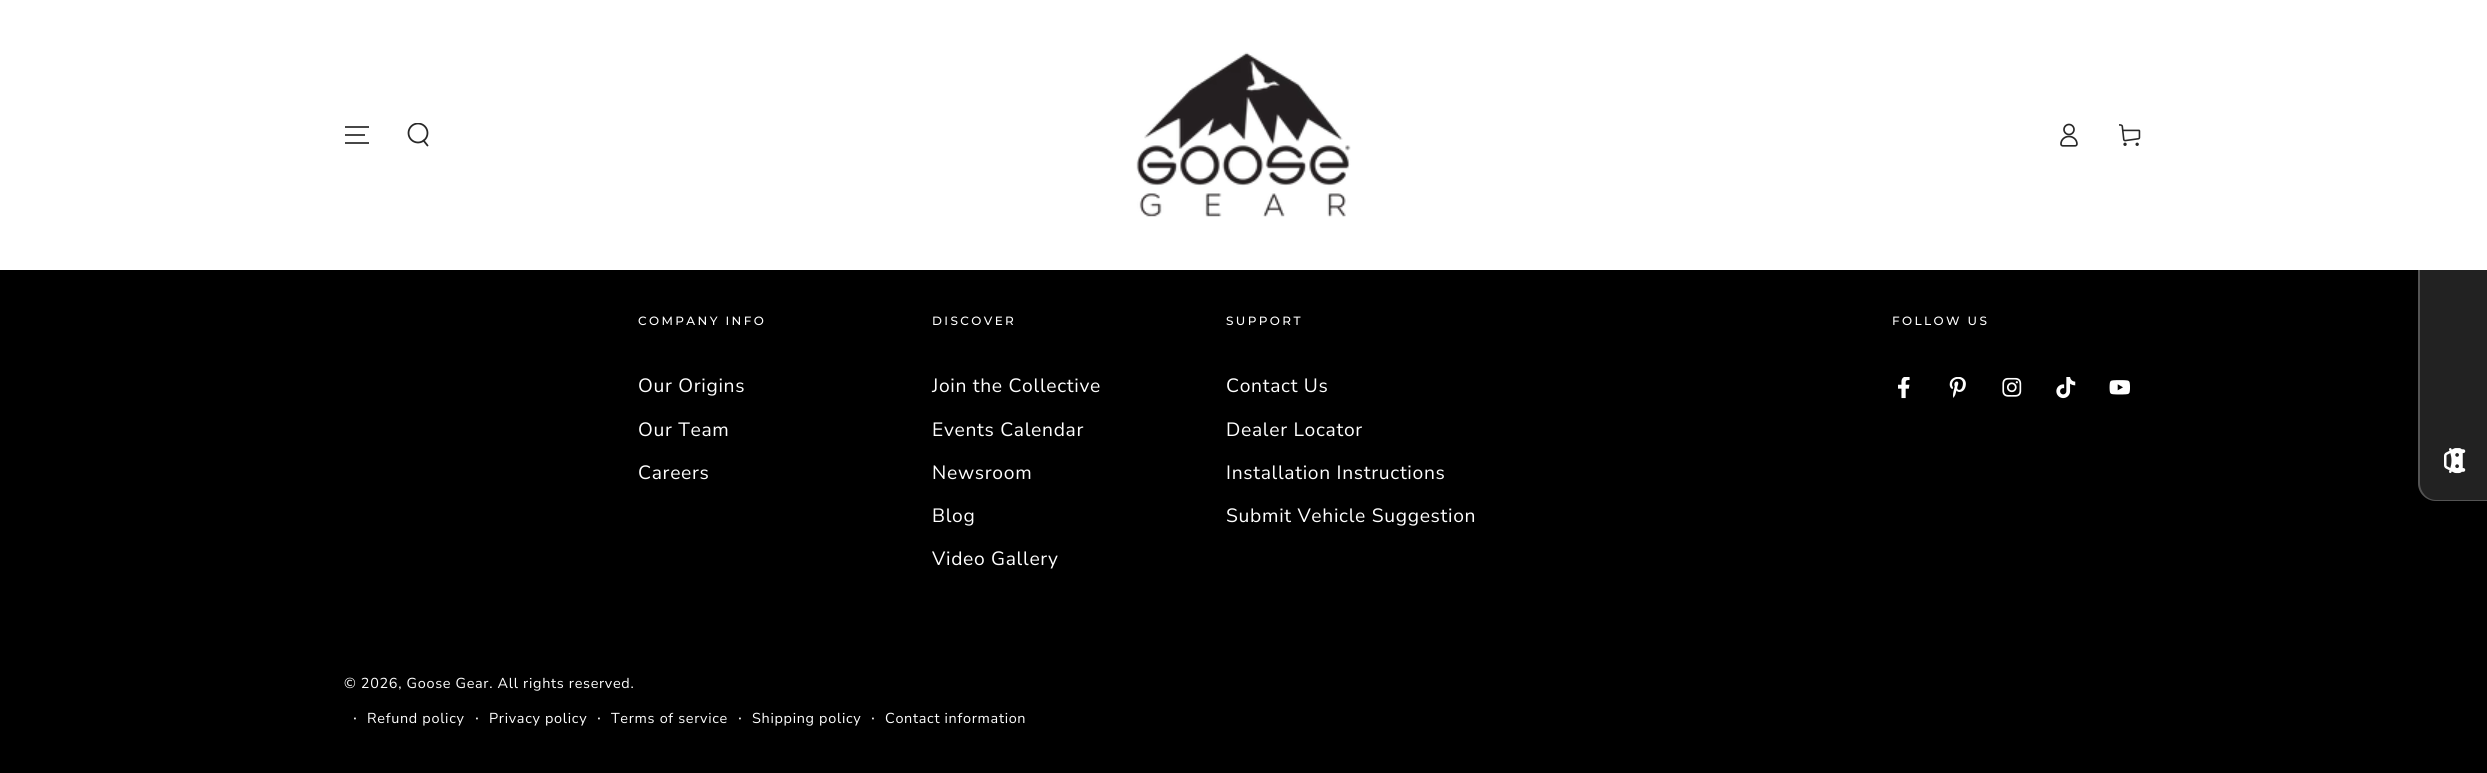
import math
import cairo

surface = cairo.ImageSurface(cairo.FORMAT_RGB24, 2487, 773)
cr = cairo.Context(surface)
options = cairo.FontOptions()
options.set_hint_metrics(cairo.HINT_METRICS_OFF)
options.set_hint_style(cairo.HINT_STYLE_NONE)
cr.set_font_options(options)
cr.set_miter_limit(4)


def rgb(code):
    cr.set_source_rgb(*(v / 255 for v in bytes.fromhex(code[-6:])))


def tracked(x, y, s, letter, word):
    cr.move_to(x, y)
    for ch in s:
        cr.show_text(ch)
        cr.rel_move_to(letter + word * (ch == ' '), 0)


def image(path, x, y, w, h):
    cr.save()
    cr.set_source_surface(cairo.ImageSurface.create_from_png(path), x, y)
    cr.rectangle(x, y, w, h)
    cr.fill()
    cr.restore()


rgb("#000000")
cr.paint()
rgb("#222222")
cr.new_path()
cr.move_to(2418, 483)
cr.line_to(2418, 168)
cr.curve_to(2418, 158, 2426, 150, 2436, 150)
cr.line_to(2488, 150)
cr.line_to(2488, 501)
cr.line_to(2436, 501)
cr.curve_to(2426, 501, 2418, 493, 2418, 483)
cr.close_path()
cr.fill()
cr.set_source_rgba(0.525, 0.525, 0.525, 0.5)
cr.set_fill_rule(cairo.FILL_RULE_EVEN_ODD)
cr.new_path()
cr.move_to(2418, 483)
cr.line_to(2418, 168)
cr.curve_to(2418, 158, 2426, 150, 2436, 150)
cr.line_to(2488, 150)
cr.line_to(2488, 501)
cr.line_to(2436, 501)
cr.curve_to(2426, 501, 2418, 493, 2418, 483)
cr.close_path()
cr.move_to(2420, 483)
cr.line_to(2420, 168)
cr.curve_to(2420, 159, 2427, 151, 2436, 151)
cr.line_to(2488, 151)
cr.line_to(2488, 500)
cr.line_to(2436, 500)
cr.curve_to(2427, 500, 2420, 492, 2420, 483)
cr.close_path()
cr.fill()
rgb("#ffffff")
cr.rectangle(0, 0, 2487, 270)
cr.fill()
cr.new_path()
cr.move_to(345, 143)
cr.line_to(369, 143)
cr.move_to(345, 135)
cr.line_to(365, 135)
cr.move_to(345, 127)
cr.line_to(369, 127)
rgb("#282828")
cr.set_line_width(1.7)
cr.stroke()
cr.save()
cr.set_fill_rule(cairo.FILL_RULE_WINDING)
cr.rectangle(407, 123, 24, 24)
cr.clip()
cr.arc(418, 133, 9.5, 0, 2 * math.pi)
cr.set_line_width(1.8)
cr.stroke()
cr.restore()
cr.new_path()
cr.move_to(423.5, 140.5)
cr.line_to(427.5, 145.5)
cr.set_line_width(1.8)
cr.set_line_cap(cairo.LINE_CAP_ROUND)
cr.stroke()
image("img/1.png", 1136, 52, 215, 165)
image("img/2.png", 2060, 123, 18, 24)
image("img/3.png", 2119, 124, 22, 22)
image("img/4.png", 1898, 377, 12, 22)
image("img/5.png", 1949, 377, 17, 21)
image("img/6.png", 2002, 377, 20, 20)
image("img/7.png", 2056, 377, 20, 22)
image("img/8.png", 2109, 380, 21, 15)
image("img/9.png", 2444, 448, 22, 26)
cr.select_font_face("Montserrat Medium")
cr.set_font_size(12)
rgb("#ffffff")
tracked(638, 325, "COMPANY INFO", 2.4, 0)
cr.select_font_face("Nunito Sans ExtraLight")
cr.set_font_size(19.25)
for x, y, s in [
    (638, 392, "Our Origins"),
    (638, 436, "Our Team"),
    (638, 479, "Careers"),
]:
    tracked(x, y, s, 0.7, 0)
cr.select_font_face("Montserrat Medium")
cr.set_font_size(12)
tracked(932, 325, "DISCOVER", 2.4, 0)
cr.select_font_face("Nunito Sans ExtraLight")
cr.set_font_size(19.25)
for x, y, s in [
    (932, 392, "Join the Collective"),
    (932, 436, "Events Calendar"),
    (932, 479, "Newsroom"),
    (932, 522, "Blog"),
    (932, 565, "Video Gallery"),
]:
    tracked(x, y, s, 0.7, 0)
cr.select_font_face("Montserrat Medium")
cr.set_font_size(12)
tracked(1226, 325, "SUPPORT", 2.4, 0)
cr.select_font_face("Nunito Sans ExtraLight")
cr.set_font_size(19.25)
for x, y, s in [
    (1226, 392, "Contact Us"),
    (1226, 436, "Dealer Locator"),
    (1226, 479, "Installation Instructions"),
    (1226, 522, "Submit Vehicle Suggestion"),
]:
    tracked(x, y, s, 0.7, 0)
cr.select_font_face("Montserrat Medium")
cr.set_font_size(12)
tracked(1892, 325, "FOLLOW US", 2.4, 0)
cr.select_font_face("Nunito Sans ExtraLight")
cr.set_font_size(14.4)
tracked(344, 688, "© 2026, Goose Gear. All rights reserved.", 0.7, 0)
cr.set_font_size(17)
tracked(353, 723, "·", 0.7, 0)
cr.set_font_size(14.4)
tracked(367, 723, "Refund policy", 0.7, 0)
cr.set_font_size(17)
tracked(475, 723, "·", 0.7, 0)
cr.set_font_size(14.4)
tracked(489, 723, "Privacy policy", 0.7, 0)
cr.set_font_size(17)
tracked(597, 723, "·", 0.7, 0)
cr.set_font_size(14.4)
tracked(611, 723, "Terms of service", 0.7, 0)
cr.set_font_size(17)
tracked(738, 723, "·", 0.7, 0)
cr.set_font_size(14.4)
tracked(752, 723, "Shipping policy", 0.7, 0)
cr.set_font_size(17)
tracked(871, 723, "·", 0.7, 0)
cr.set_font_size(14.4)
tracked(885, 723, "Contact information", 0.7, 0)
surface.write_to_png("page.png")
